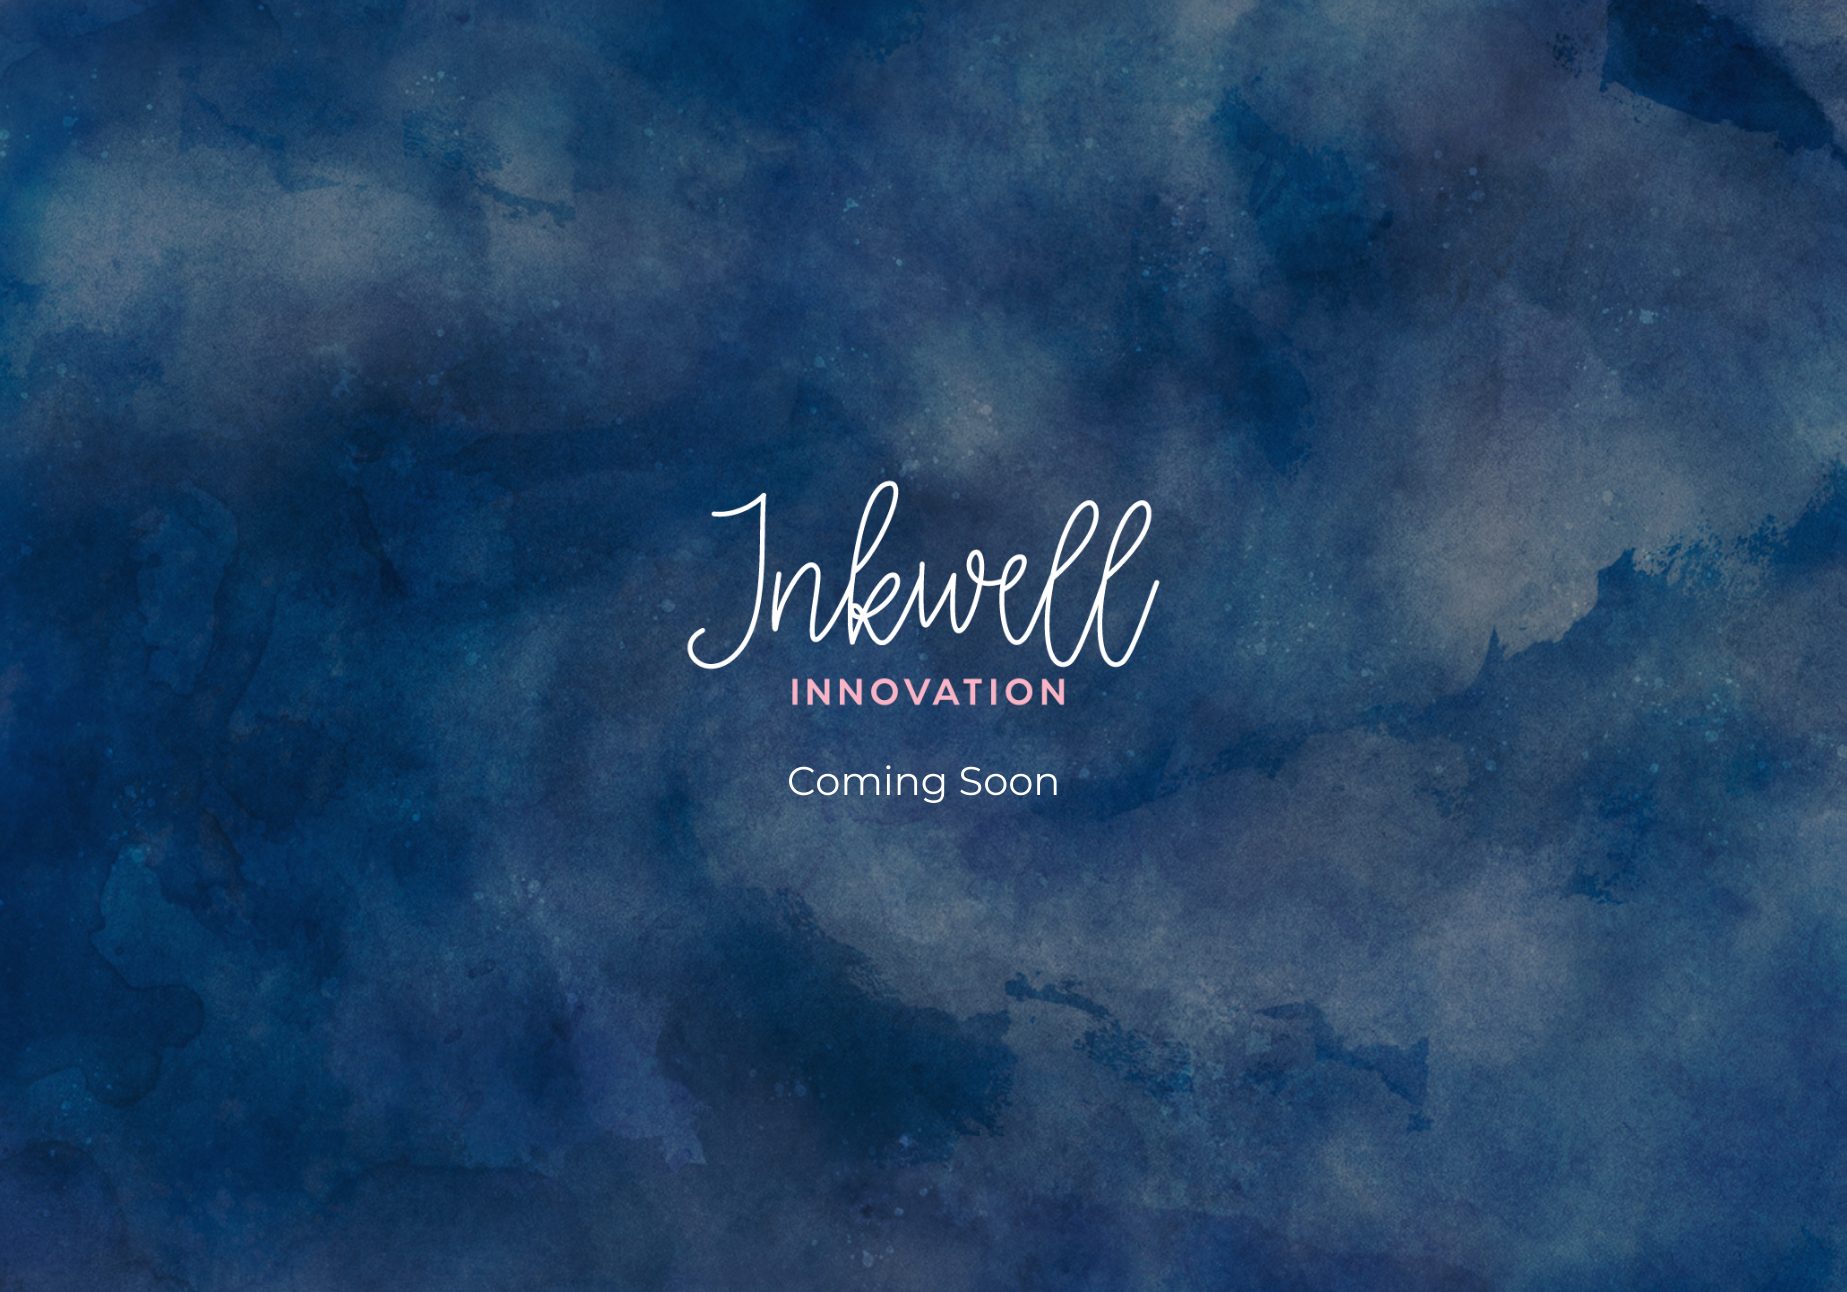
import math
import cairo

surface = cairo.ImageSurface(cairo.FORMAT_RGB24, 1847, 1292)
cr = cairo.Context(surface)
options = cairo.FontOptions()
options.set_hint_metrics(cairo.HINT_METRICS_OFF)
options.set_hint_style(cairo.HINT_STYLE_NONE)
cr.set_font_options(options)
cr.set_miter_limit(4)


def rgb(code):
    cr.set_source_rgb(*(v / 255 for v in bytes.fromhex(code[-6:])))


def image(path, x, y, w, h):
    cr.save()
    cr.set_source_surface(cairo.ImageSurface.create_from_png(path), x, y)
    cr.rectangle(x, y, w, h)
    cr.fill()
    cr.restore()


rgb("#ffffff")
cr.paint()
image("img/1.png", 0, 0, 1847, 1292)
image("img/2.png", 687, 480, 473, 226)
cr.select_font_face("Montserrat")
cr.set_font_size(40)
rgb("#ffffff")
cr.move_to(787, 795)
cr.show_text("Coming Soon")
surface.write_to_png("page.png")
